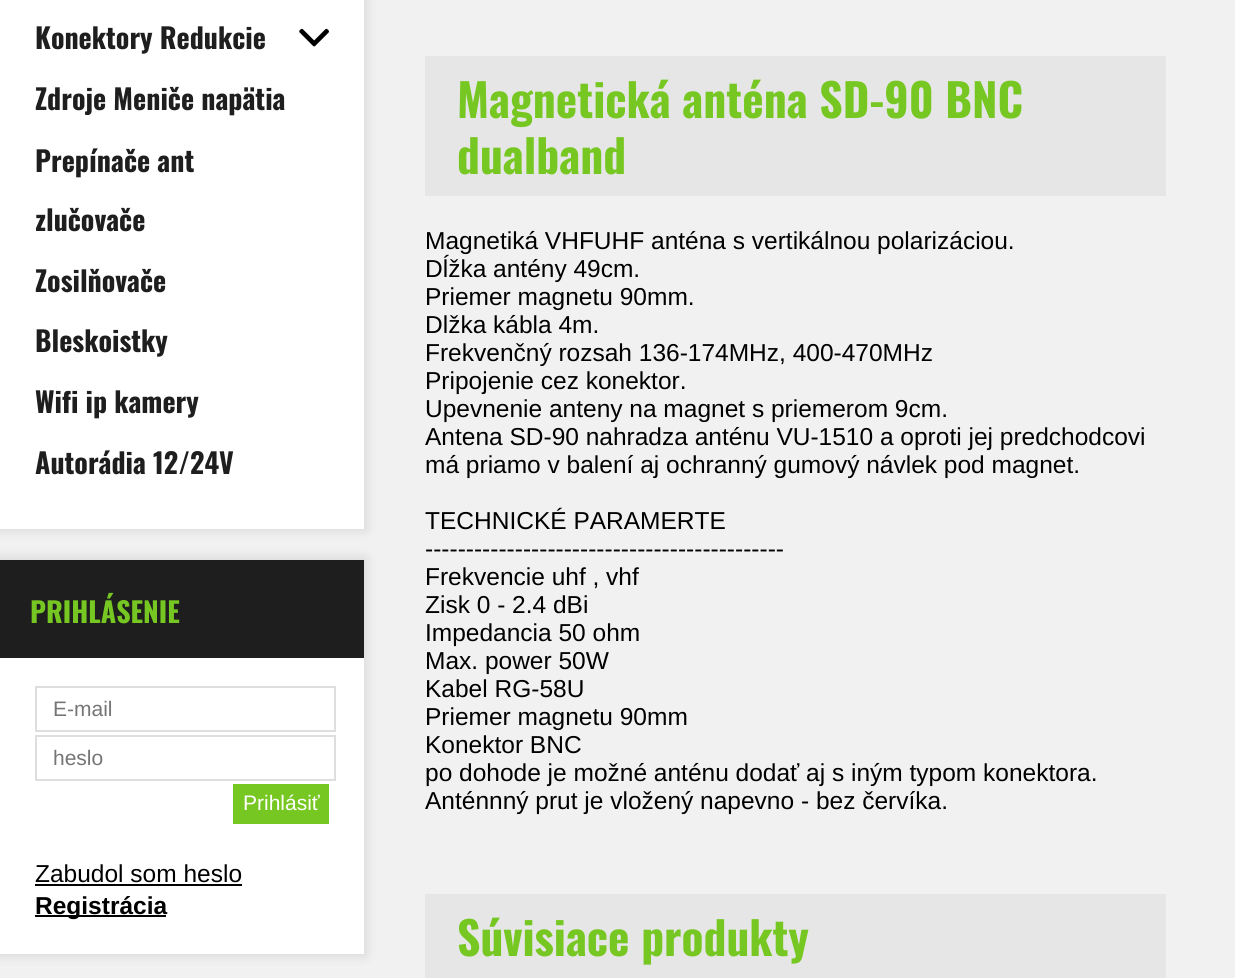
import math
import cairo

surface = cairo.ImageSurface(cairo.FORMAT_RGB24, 1235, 978)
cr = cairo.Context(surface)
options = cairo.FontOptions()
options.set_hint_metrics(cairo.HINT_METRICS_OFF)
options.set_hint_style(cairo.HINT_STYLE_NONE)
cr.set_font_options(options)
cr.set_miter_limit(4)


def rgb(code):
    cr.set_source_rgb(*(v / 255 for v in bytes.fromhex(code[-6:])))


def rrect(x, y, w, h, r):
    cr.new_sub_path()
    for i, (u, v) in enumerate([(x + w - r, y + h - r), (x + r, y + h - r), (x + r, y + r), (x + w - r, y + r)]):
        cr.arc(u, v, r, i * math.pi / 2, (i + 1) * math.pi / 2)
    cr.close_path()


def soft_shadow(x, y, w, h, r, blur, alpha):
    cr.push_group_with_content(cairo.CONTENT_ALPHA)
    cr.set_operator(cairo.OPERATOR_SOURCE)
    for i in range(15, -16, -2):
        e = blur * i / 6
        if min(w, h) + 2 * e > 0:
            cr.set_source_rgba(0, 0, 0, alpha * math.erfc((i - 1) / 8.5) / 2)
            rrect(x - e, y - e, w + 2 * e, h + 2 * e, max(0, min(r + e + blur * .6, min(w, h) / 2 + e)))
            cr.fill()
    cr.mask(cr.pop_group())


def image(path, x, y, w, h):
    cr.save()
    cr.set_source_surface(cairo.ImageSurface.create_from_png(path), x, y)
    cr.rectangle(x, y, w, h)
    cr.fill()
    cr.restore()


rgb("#f1f1f1")
cr.paint()
rgb("#040505")
soft_shadow(-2, -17, 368, 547, 0, 5.5, 0.11)
rgb("#ffffff")
cr.rectangle(0, 0, 364, 529)
cr.fill()
image("img/1.png", 299, 28, 30, 19)
rgb("#040505")
soft_shadow(-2, 558, 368, 398, 0, 5.5, 0.11)
rgb("#ffffff")
cr.rectangle(0, 658, 364, 296)
cr.fill()
rgb("#1e1e1e")
cr.rectangle(0, 560, 364, 98)
cr.fill()
cr.rectangle(36, 687, 299, 44)
rgb("#dedede")
cr.stroke()
cr.rectangle(36, 736, 299, 44)
cr.stroke()
for x, y, w, h, color in [
    (233, 784, 96, 40, "#77c722"),
    (35, 884, 207, 2, "#000000"),
    (35, 915, 131, 2, "#000000"),
    (425, 56, 741, 140, "#e6e6e6"),
    (425, 894, 741, 84, "#e6e6e6"),
]:
    rgb(color)
    cr.rectangle(x, y, w, h)
    cr.fill()
cr.select_font_face("Oswald", cairo.FONT_SLANT_NORMAL, cairo.FONT_WEIGHT_BOLD)
cr.set_font_size(28)
rgb("#1e1e1e")
for x, y, s in [
    (35, 49, "Konektory Redukcie"),
    (35, 110, "Zdroje Meniče napätia"),
    (35, 172, "Prepínače ant"),
    (35, 231, "zlučovače"),
    (35, 292, "Zosilňovače"),
    (35, 352, "Bleskoistky"),
    (35, 413, "Wifi ip kamery"),
    (35, 474, "Autorádia 12/24V"),
]:
    cr.move_to(x, y)
    cr.show_text(s)
rgb("#77c722")
cr.move_to(30, 623)
cr.show_text("PRIHLÁSENIE")
cr.select_font_face("Liberation Sans")
cr.set_font_size(21)
rgb("#757575")
cr.move_to(53, 716)
cr.show_text("E-mail")
cr.move_to(53, 765)
cr.show_text("heslo")
rgb("#ffffff")
cr.move_to(243, 810)
cr.show_text("Prihlásiť")
cr.set_font_size(24.5)
rgb("#000000")
cr.move_to(35, 882)
cr.show_text("Zabudol som heslo")
cr.select_font_face("Liberation Sans", cairo.FONT_SLANT_NORMAL, cairo.FONT_WEIGHT_BOLD)
cr.move_to(35, 914)
cr.show_text("Registrácia")
cr.select_font_face("Oswald", cairo.FONT_SLANT_NORMAL, cairo.FONT_WEIGHT_BOLD)
cr.set_font_size(45.5)
rgb("#77c722")
cr.move_to(457, 118)
cr.show_text("Magnetická anténa SD-90 BNC")
cr.move_to(457, 174)
cr.show_text("dualband")
cr.select_font_face("Liberation Sans")
cr.set_font_size(24.5)
rgb("#000000")
for x, y, s in [
    (425, 249, "Magnetiká VHFUHF anténa s vertikálnou polarizáciou."),
    (425, 277, "Dĺžka antény 49cm."),
    (425, 305, "Priemer magnetu 90mm."),
    (425, 333, "Dlžka kábla 4m."),
    (425, 361, "Frekvenčný rozsah 136-174MHz, 400-470MHz"),
    (425, 389, "Pripojenie cez konektor."),
    (425, 417, "Upevnenie anteny na magnet s priemerom 9cm."),
    (425, 445, "Antena SD-90 nahradza anténu VU-1510 a oproti jej predchodcovi"),
    (425, 473, "má priamo v balení aj ochranný gumový návlek pod magnet."),
    (425, 529, "TECHNICKÉ PARAMERTE"),
    (425, 557, "--------------------------------------------"),
    (425, 585, "Frekvencie uhf , vhf"),
    (425, 613, "Zisk 0 - 2.4 dBi"),
    (425, 641, "Impedancia 50 ohm"),
    (425, 669, "Max. power 50W"),
    (425, 697, "Kabel RG-58U"),
    (425, 725, "Priemer magnetu 90mm"),
    (425, 753, "Konektor BNC"),
    (425, 781, "po dohode je možné anténu dodať aj s iným typom konektora."),
    (425, 809, "Anténnný prut je vložený napevno - bez červíka."),
]:
    cr.move_to(x, y)
    cr.show_text(s)
cr.select_font_face("Oswald", cairo.FONT_SLANT_NORMAL, cairo.FONT_WEIGHT_BOLD)
cr.set_font_size(45.5)
rgb("#77c722")
cr.move_to(457, 956)
cr.show_text("Súvisiace produkty")
surface.write_to_png("page.png")
